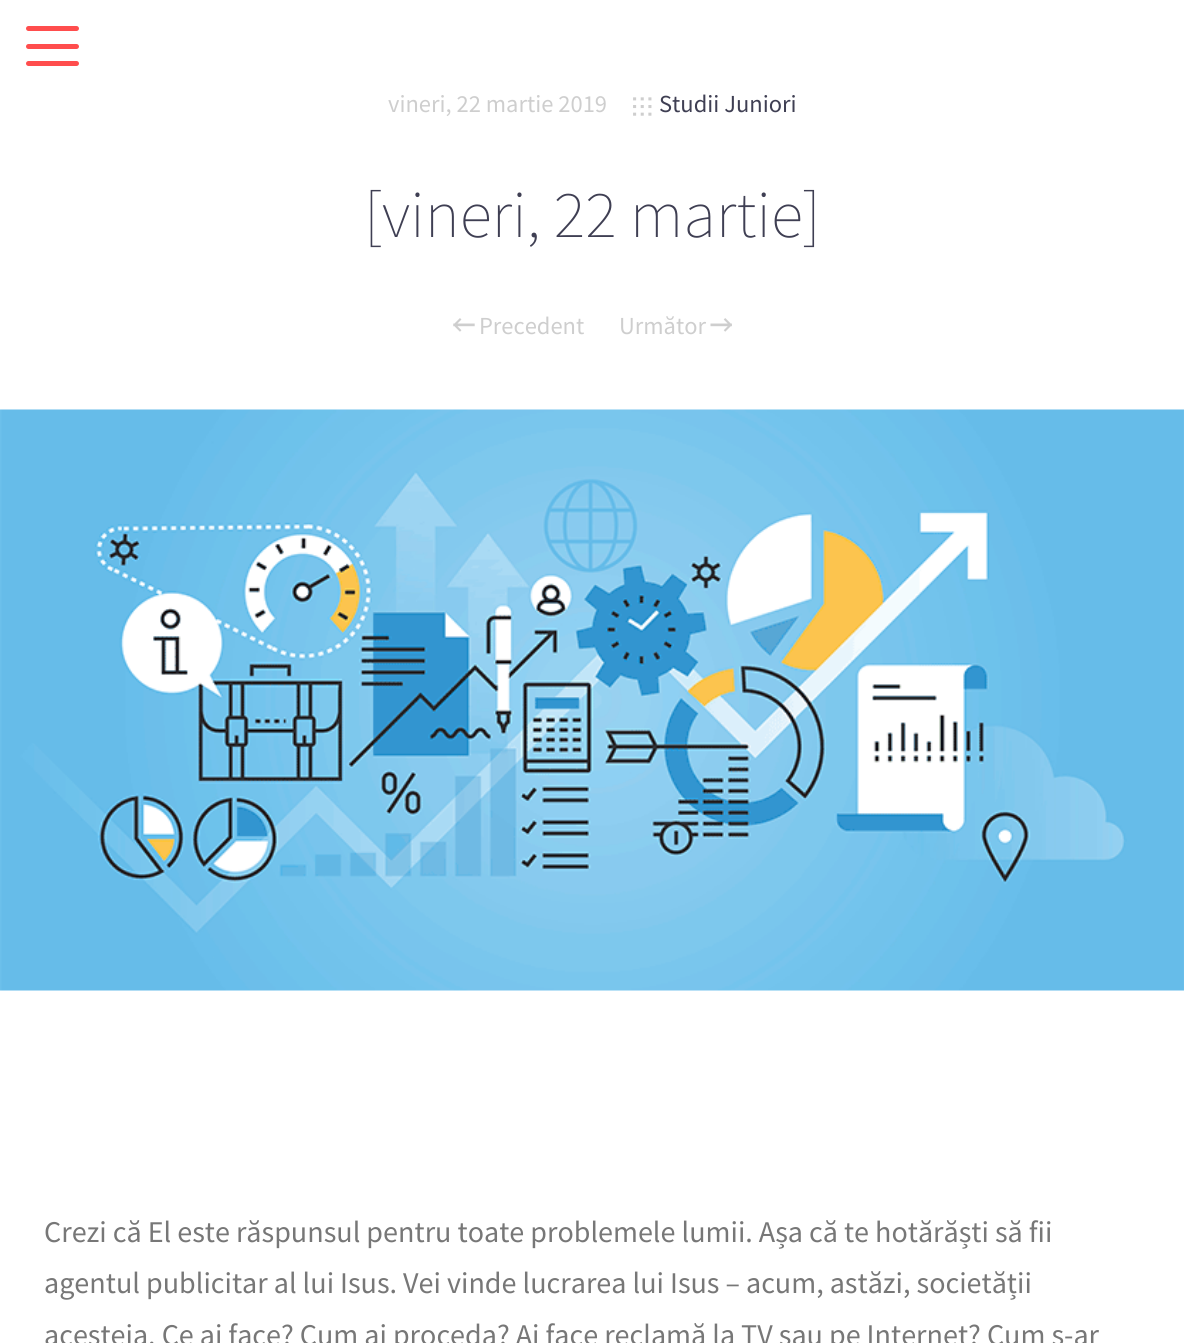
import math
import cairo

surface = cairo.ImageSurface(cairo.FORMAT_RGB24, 1184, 1343)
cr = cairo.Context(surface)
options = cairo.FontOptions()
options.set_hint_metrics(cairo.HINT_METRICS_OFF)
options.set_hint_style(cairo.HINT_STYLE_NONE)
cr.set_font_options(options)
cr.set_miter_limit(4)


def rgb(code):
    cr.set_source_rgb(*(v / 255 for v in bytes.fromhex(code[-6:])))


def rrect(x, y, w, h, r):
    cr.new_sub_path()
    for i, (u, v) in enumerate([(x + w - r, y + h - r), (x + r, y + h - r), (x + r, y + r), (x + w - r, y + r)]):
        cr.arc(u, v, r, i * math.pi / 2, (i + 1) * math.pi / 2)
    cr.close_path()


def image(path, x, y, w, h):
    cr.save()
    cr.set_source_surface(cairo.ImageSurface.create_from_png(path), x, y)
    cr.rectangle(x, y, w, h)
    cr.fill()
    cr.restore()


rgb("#ffffff")
cr.paint()
rgb("#ff4d4d")
rrect(26, 44, 53, 5, 2.5)
cr.fill()
rrect(26, 26, 53, 5, 2.5)
cr.fill()
rrect(26, 61, 53, 5, 2.5)
cr.fill()
image("img/1.png", 633, 97, 19, 19)
image("img/2.png", 453, 318, 22, 14)
image("img/3.png", 710, 318, 22, 14)
image("img/4.png", 0, 409, 1184, 582)
cr.select_font_face("Source Sans Pro")
cr.set_font_size(24.5)
rgb("#cecece")
cr.move_to(388, 112)
cr.show_text("vineri, 22 martie 2019")
rgb("#3f3f53")
cr.move_to(659, 112)
cr.show_text("Studii Juniori")
cr.select_font_face("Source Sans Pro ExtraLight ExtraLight")
cr.set_font_size(66.5)
cr.move_to(364, 237)
cr.show_text("[vineri, 22 martie]")
cr.select_font_face("Source Sans Pro")
cr.set_font_size(24.5)
rgb("#cecece")
cr.move_to(479, 334)
cr.show_text("Precedent")
cr.move_to(619, 334)
cr.show_text("Următor")
cr.set_font_size(30.1)
rgb("#777777")
for x, y, s in [
    (44, 1242, "Crezi că El este răspunsul pentru toate problemele lumii. Așa că te hotărăști să fii"),
    (44, 1293, "agentul publicitar al lui Isus. Vei vinde lucrarea lui Isus – acum, astăzi, societății"),
    (44, 1345, "acesteia. Ce ai face? Cum ai proceda? Ai face reclamă la TV sau pe Internet? Cum s-ar"),
]:
    cr.move_to(x, y)
    cr.show_text(s)
surface.write_to_png("page.png")
